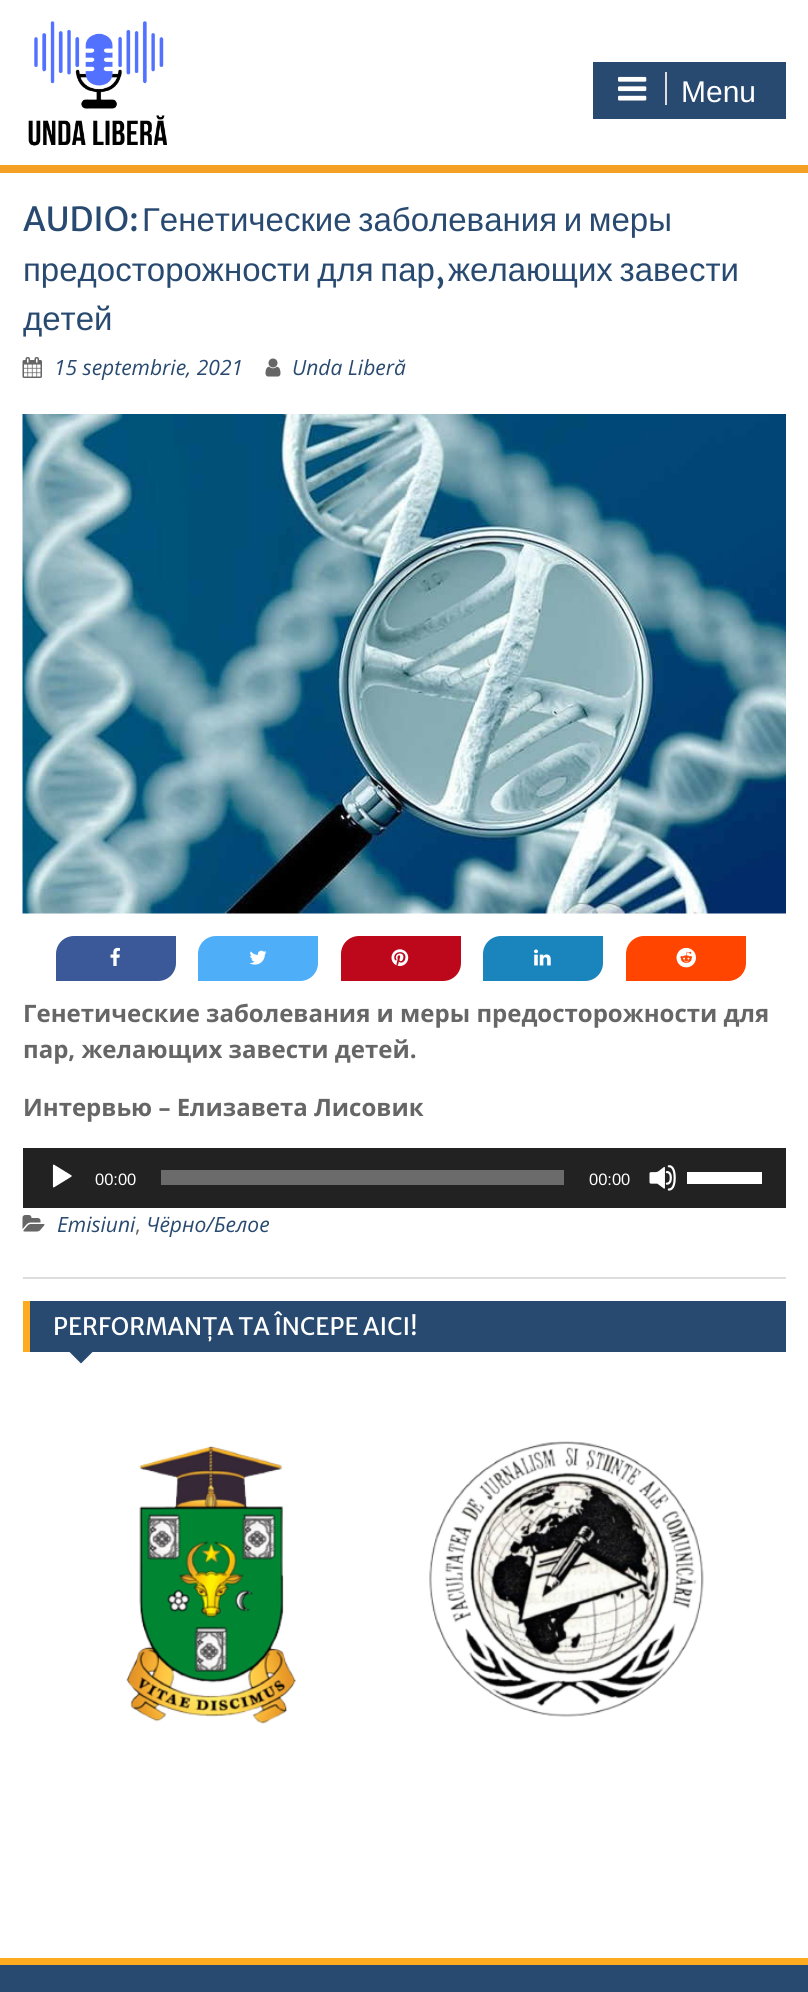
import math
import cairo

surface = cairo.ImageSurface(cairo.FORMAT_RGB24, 808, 1992)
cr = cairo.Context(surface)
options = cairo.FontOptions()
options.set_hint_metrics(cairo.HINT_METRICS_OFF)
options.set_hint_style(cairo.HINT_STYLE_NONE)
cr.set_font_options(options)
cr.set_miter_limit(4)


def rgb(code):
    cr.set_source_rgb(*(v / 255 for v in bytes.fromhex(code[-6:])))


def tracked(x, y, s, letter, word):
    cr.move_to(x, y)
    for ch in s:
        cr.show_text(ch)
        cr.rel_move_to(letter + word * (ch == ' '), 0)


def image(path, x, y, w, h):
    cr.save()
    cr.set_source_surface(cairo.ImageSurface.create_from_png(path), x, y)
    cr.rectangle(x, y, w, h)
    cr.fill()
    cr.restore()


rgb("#ffffff")
cr.paint()
image("img/1.png", 28, 21, 139, 125)
for x, y, w, h, color in [
    (0, 165, 808, 8, "#f4a024"),
    (593, 62, 193, 57, "#294a70"),
    (665, 72, 2, 33, "#dddddd"),
]:
    rgb(color)
    cr.rectangle(x, y, w, h)
    cr.fill()
image("img/2.png", 618, 76, 29, 25)
cr.rectangle(23, 1277, 763, 2)
cr.fill()
image("img/3.png", 22, 357, 20, 21)
image("img/4.png", 265, 358, 16, 19)
image("img/5.png", 22, 414, 764, 500)
rgb("#3b5998")
cr.new_path()
cr.move_to(74, 936)
cr.line_to(176, 936)
cr.line_to(176, 963)
cr.curve_to(176, 973, 168, 981, 158, 981)
cr.line_to(56, 981)
cr.line_to(56, 954)
cr.curve_to(56, 944, 64, 936, 74, 936)
cr.close_path()
cr.fill()
image("img/6.png", 110, 947, 10, 19)
rgb("#4eaef8")
cr.new_path()
cr.move_to(216, 936)
cr.line_to(318, 936)
cr.line_to(318, 963)
cr.curve_to(318, 973, 310, 981, 300, 981)
cr.line_to(198, 981)
cr.line_to(198, 954)
cr.curve_to(198, 944, 206, 936, 216, 936)
cr.close_path()
cr.fill()
image("img/7.png", 249, 950, 18, 15)
rgb("#bd081c")
cr.new_path()
cr.move_to(359, 936)
cr.line_to(461, 936)
cr.line_to(461, 963)
cr.curve_to(461, 973, 453, 981, 443, 981)
cr.line_to(341, 981)
cr.line_to(341, 954)
cr.curve_to(341, 944, 349, 936, 359, 936)
cr.close_path()
cr.fill()
image("img/8.png", 391, 949, 18, 17)
rgb("#1a85bc")
cr.new_path()
cr.move_to(501, 936)
cr.line_to(603, 936)
cr.line_to(603, 963)
cr.curve_to(603, 973, 595, 981, 585, 981)
cr.line_to(483, 981)
cr.line_to(483, 954)
cr.curve_to(483, 944, 491, 936, 501, 936)
cr.close_path()
cr.fill()
image("img/9.png", 534, 949, 17, 17)
rgb("#ff4500")
cr.new_path()
cr.move_to(644, 936)
cr.line_to(746, 936)
cr.line_to(746, 963)
cr.curve_to(746, 973, 738, 981, 728, 981)
cr.line_to(626, 981)
cr.line_to(626, 954)
cr.curve_to(626, 944, 634, 936, 644, 936)
cr.close_path()
cr.fill()
image("img/10.png", 676, 947, 20, 21)
rgb("#222222")
cr.rectangle(23, 1148, 763, 60)
cr.fill()
image("img/11.png", 52, 1164, 20, 24)
rgb("#6b6b6b")
cr.rectangle(161, 1170, 403, 15)
cr.fill()
image("img/12.png", 649, 1165, 27, 26)
rgb("#ffffff")
cr.rectangle(687, 1172, 75, 12)
cr.fill()
image("img/13.png", 22, 1215, 23, 17)
rgb("#294a70")
cr.rectangle(30, 1301, 756, 51)
cr.fill()
rgb("#ffab1f")
cr.rectangle(23, 1301, 7, 51)
cr.fill()
rgb("#294a70")
cr.new_path()
cr.move_to(67.5, 1350)
cr.line_to(94.5, 1350)
cr.line_to(81, 1363.5)
cr.close_path()
cr.fill()
image("img/14.png", 126, 1441, 578, 283)
cr.rectangle(0, 1965, 808, 27)
cr.fill()
rgb("#ffab1f")
cr.rectangle(0, 1958, 808, 7)
cr.fill()
cr.select_font_face("Liberation Sans")
cr.set_font_size(30)
rgb("#ffffff")
cr.move_to(681, 102)
cr.show_text("Menu")
cr.select_font_face("Merriweather Sans")
cr.set_font_size(33)
rgb("#294a70")
cr.move_to(23, 231)
cr.show_text("AUDIO:")
cr.select_font_face("Liberation Sans")
tracked(142, 231, "Генетические заболевания и меры", 0, -2.5)
tracked(23, 281, "предосторожности для пар", 0, -2.5)
cr.select_font_face("Merriweather Sans")
cr.move_to(435, 281)
cr.show_text(",")
cr.select_font_face("Liberation Sans")
tracked(448, 281, "желающих завести", 0, -2.5)
cr.move_to(23, 330)
cr.show_text("детей")
cr.select_font_face("Open Sans", cairo.FONT_SLANT_ITALIC)
cr.set_font_size(21)
cr.move_to(54, 375)
cr.show_text("15 septembrie, 2021")
cr.move_to(292, 375)
cr.show_text("Unda Liberă")
cr.select_font_face("Open Sans", cairo.FONT_SLANT_NORMAL, cairo.FONT_WEIGHT_BOLD)
cr.set_font_size(24)
rgb("#666666")
for x, y, s in [
    (23, 1022, "Генетические заболевания и меры предосторожности для"),
    (23, 1058, "пар, желающих завести детей."),
    (23, 1116, "Интервью – Елизавета Лисовик"),
]:
    cr.move_to(x, y)
    cr.show_text(s)
cr.select_font_face("Liberation Sans")
cr.set_font_size(16.5)
rgb("#ffffff")
cr.move_to(95, 1185)
cr.show_text("00:00")
cr.move_to(589, 1185)
cr.show_text("00:00")
cr.select_font_face("Open Sans", cairo.FONT_SLANT_ITALIC)
cr.set_font_size(21)
rgb("#294a70")
cr.move_to(57, 1232)
cr.show_text("Emisiuni")
cr.select_font_face("Open Sans")
rgb("#666666")
cr.move_to(135, 1232)
cr.show_text(",")
cr.select_font_face("Open Sans", cairo.FONT_SLANT_ITALIC)
rgb("#294a70")
cr.move_to(146, 1232)
cr.show_text("Чёрно/Белое")
cr.select_font_face("Merriweather Sans")
cr.set_font_size(24)
rgb("#ffffff")
cr.move_to(53, 1335)
cr.show_text("PERFORMANȚA TA ÎNCEPE AICI!")
surface.write_to_png("page.png")
